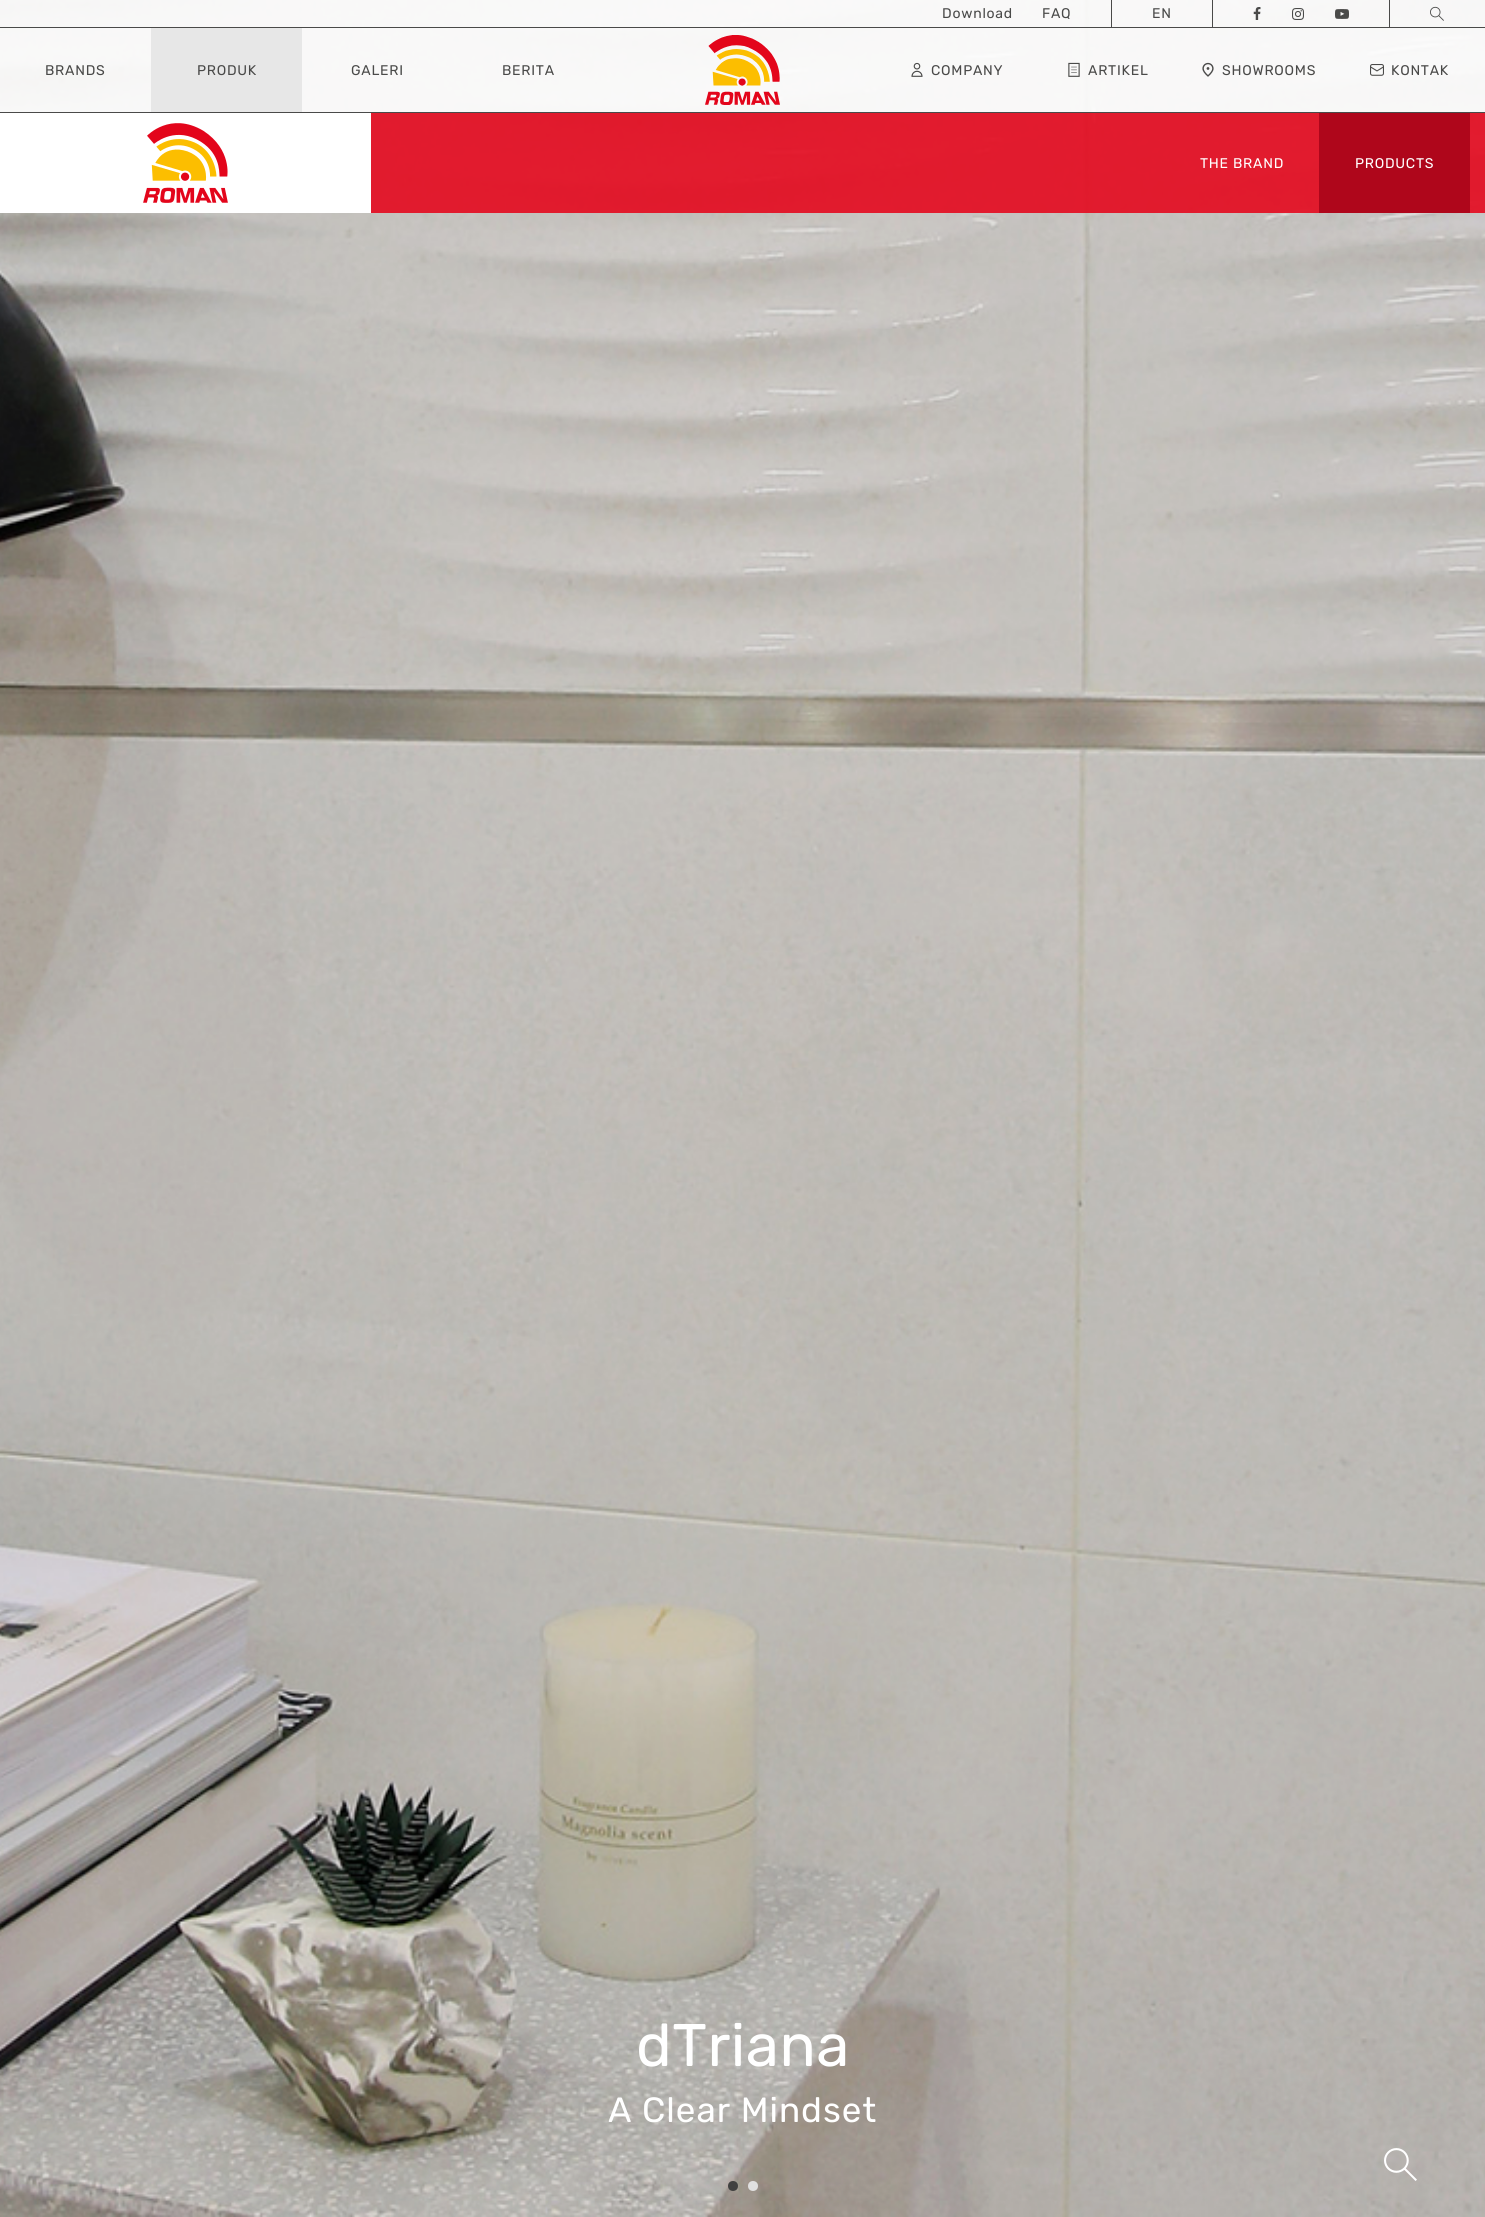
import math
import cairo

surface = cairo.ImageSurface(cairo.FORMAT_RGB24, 1485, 2217)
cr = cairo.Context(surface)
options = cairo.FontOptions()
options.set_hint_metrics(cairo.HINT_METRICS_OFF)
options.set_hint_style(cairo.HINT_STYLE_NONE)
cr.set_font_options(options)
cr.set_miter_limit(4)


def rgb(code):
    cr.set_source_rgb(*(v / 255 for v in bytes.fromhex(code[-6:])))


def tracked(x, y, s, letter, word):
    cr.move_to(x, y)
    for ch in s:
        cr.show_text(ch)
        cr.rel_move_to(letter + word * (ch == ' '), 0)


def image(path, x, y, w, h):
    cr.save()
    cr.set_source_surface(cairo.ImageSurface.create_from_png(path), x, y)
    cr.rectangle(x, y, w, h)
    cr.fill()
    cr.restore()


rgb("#ffffff")
cr.paint()
image("img/11.png", 0, 0, 1485, 2217)
cr.set_source_rgba(1, 1, 1, 0.89)
cr.rectangle(0, 0, 1485, 27)
cr.fill()
rgb("#4a4a49")
cr.rectangle(0, 27, 1485, 1)
cr.rectangle(1111, 0, 1, 27)
cr.rectangle(1212, 0, 1, 27)
cr.rectangle(1389, 0, 1, 27)
cr.fill()
image("img/1.png", 1253, 7, 8, 13)
image("img/2.png", 1292, 8, 12, 12)
image("img/3.png", 1335, 9, 14, 10)
image("img/4.png", 1430, 6, 14, 15)
cr.set_source_rgba(1, 1, 1, 0.89)
cr.rectangle(0, 28, 1485, 84)
cr.fill()
rgb("#4a4a49")
cr.rectangle(0, 112, 1485, 1)
cr.fill()
rgb("#e7e7e7")
cr.rectangle(151, 28, 151, 84)
cr.fill()
image("img/5.png", 705, 35, 75, 70)
image("img/6.png", 911, 62, 12, 15)
image("img/7.png", 1068, 62, 12, 15)
image("img/8.png", 1202, 62, 12, 15)
image("img/9.png", 1370, 64, 14, 12)
cr.set_source_rgba(0.898, 0.035, 0.118, 0.9)
cr.rectangle(371, 113, 1114, 100)
cr.fill()
rgb("#ffffff")
cr.rectangle(0, 113, 371, 100)
cr.fill()
image("img/10.png", 143, 123, 85, 80)
rgb("#af061b")
cr.rectangle(1319, 113, 151, 100)
cr.fill()
rgb("#414140")
cr.arc(733, 2186, 5, 0, 2 * math.pi)
cr.fill()
rgb("#e0e0e0")
cr.arc(753, 2186, 5, 0, 2 * math.pi)
cr.fill()
image("img/12.png", 1384, 2148, 33, 33)
cr.select_font_face("Rubik")
cr.set_font_size(14)
rgb("#4a4a49")
for x, y, s in [
    (942, 18, "Download"),
    (1042, 18, "FAQ"),
    (1152, 18, "EN"),
    (45, 75, "BRANDS"),
    (197, 75, "PRODUK"),
    (351, 75, "GALERI"),
    (502, 75, "BERITA"),
    (931, 75, "COMPANY"),
    (1088, 75, "ARTIKEL"),
    (1222, 75, "SHOWROOMS"),
    (1391, 75, "KONTAK"),
]:
    tracked(x, y, s, 0.75, 0)
rgb("#ffffff")
tracked(1200, 168, "THE BRAND", 0.75, 0)
tracked(1355, 168, "PRODUCTS", 0.75, 0)
cr.set_font_size(60)
tracked(636, 2066, "dTriana", 0.5, 0)
cr.set_font_size(35)
tracked(608, 2122, "A Clear Mindset", 1, 0)
surface.write_to_png("page.png")
